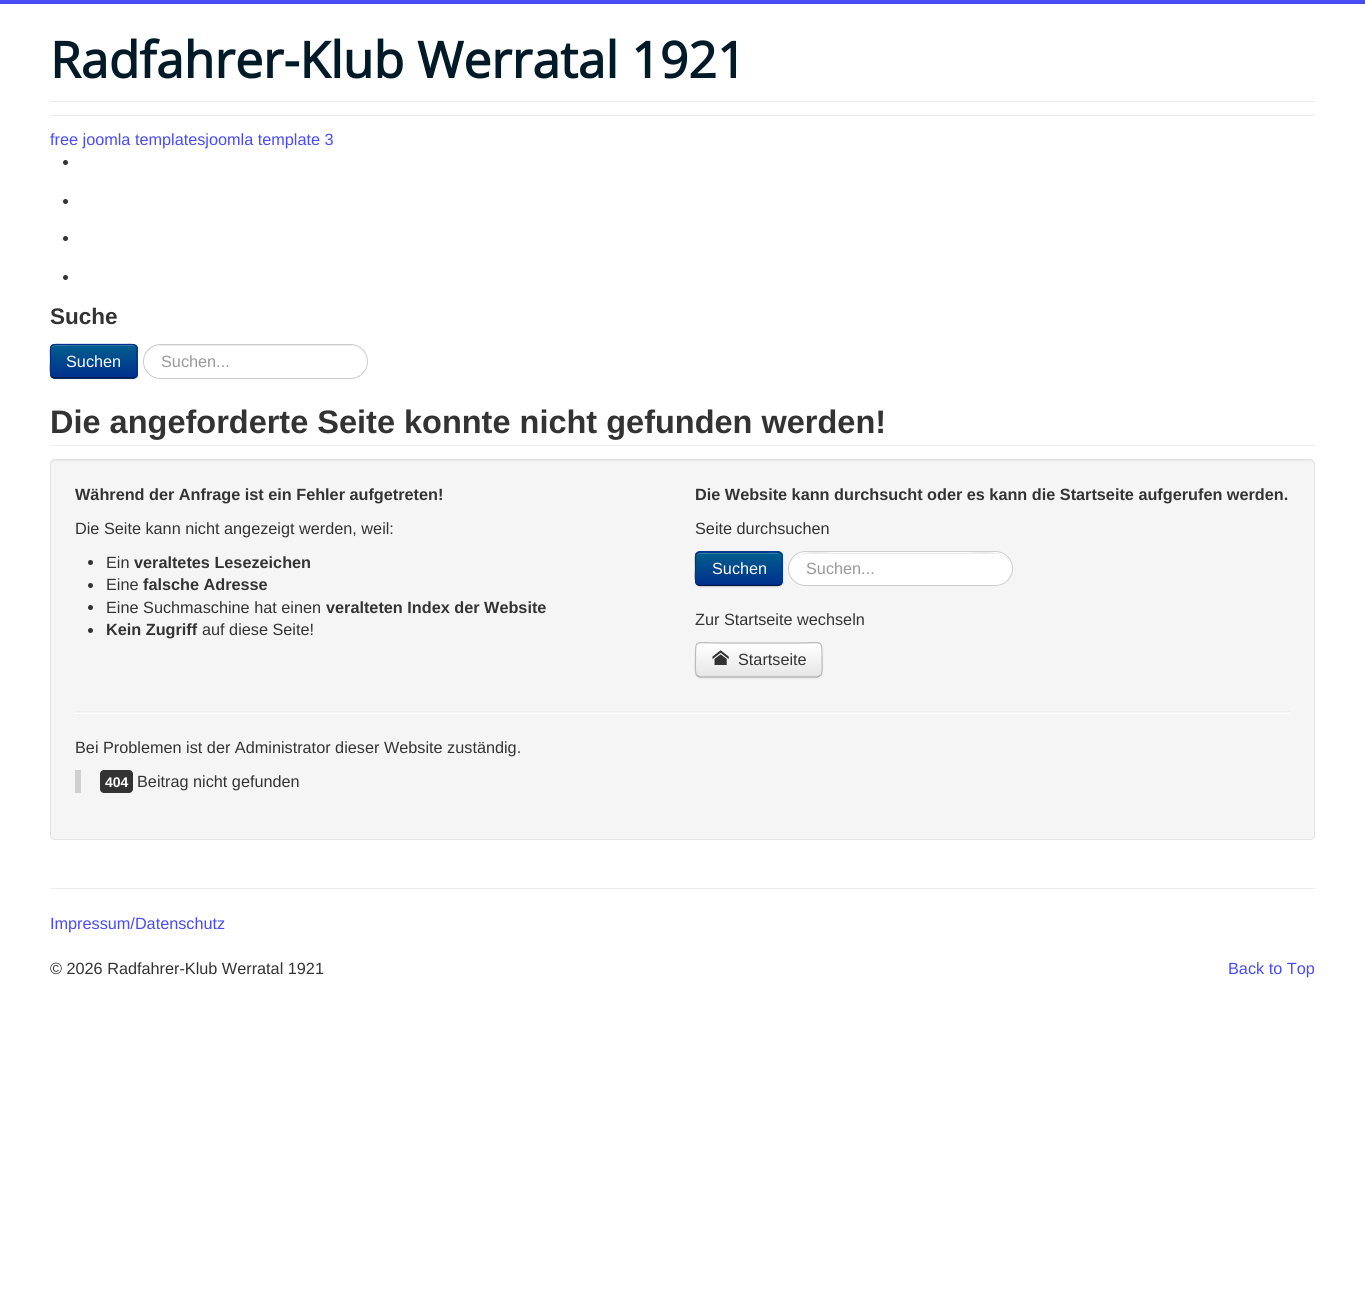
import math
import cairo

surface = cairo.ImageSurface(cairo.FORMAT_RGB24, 1365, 1314)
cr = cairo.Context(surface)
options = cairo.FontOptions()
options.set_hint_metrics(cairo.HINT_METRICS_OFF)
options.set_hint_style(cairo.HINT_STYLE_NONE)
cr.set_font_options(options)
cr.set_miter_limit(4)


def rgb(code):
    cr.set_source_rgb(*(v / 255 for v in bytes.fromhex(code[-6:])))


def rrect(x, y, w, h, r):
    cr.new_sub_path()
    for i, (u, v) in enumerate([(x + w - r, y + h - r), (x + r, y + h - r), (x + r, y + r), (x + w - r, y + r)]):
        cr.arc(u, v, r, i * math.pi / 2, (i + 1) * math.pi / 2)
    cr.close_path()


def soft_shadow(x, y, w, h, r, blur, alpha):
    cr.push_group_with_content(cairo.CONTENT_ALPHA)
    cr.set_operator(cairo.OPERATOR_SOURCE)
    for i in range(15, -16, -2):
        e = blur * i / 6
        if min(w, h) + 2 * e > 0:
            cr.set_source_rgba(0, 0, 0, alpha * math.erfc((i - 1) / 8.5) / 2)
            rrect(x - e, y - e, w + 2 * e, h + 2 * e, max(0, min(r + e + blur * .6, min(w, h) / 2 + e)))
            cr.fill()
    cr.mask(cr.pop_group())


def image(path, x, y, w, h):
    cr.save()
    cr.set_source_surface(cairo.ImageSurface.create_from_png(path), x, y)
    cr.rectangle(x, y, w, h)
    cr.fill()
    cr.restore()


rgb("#ffffff")
cr.paint()
for x, y, w, h, color in [
    (0, 0, 1365, 4, "#494cf5"),
    (50, 101, 1265, 1, "#ececec"),
    (50, 115, 1265, 1, "#ececec"),
]:
    rgb(color)
    cr.rectangle(x, y, w, h)
    cr.fill()
rgb("#333333")
cr.arc(65.5, 162.5, 2.5, 0, 2 * math.pi)
cr.fill()
cr.arc(65.5, 201.5, 2.5, 0, 2 * math.pi)
cr.fill()
cr.arc(65.5, 238.5, 2.5, 0, 2 * math.pi)
cr.fill()
cr.arc(65.5, 277.5, 2.5, 0, 2 * math.pi)
cr.fill()
rgb("#000000")
soft_shadow(50, 345, 88, 35, 5, 1, 0.05)
rgb("#004b8d")
rrect(50, 344, 88, 35, 5)
cr.fill()
cr.save()
rrect(50, 344, 88, 35, 5)
cr.clip()
gradient = cairo.LinearGradient(94, 345, 94, 378)
gradient.add_color_stop_rgba(0, 0, 0.369, 0.553, 1)
gradient.add_color_stop_rgba(1, 0, 0.184, 0.553, 1)
cr.set_source(gradient)
cr.rectangle(50, 345, 88, 33)
cr.fill()
cr.restore()
cr.set_source_rgba(1, 1, 1, 0.2)
cr.new_path()
cr.move_to(55, 346)
cr.line_to(132, 346)
cr.curve_to(135, 346, 136, 348, 136, 350)
cr.curve_to(136, 342, 124, 345, 119, 345)
cr.line_to(68, 345)
cr.curve_to(63, 345, 51, 342, 51, 350)
cr.curve_to(51, 348, 53, 346, 55, 346)
cr.close_path()
cr.fill()
cr.new_path()
cr.move_to(135.5, 377)
cr.line_to(133, 378)
cr.line_to(54.5, 378)
cr.line_to(52, 377)
rgb("#001641")
cr.set_line_width(1.2)
cr.stroke()
cr.new_path()
cr.move_to(52, 377)
cr.curve_to(49.5, 374.5, 50.5, 364.5, 50.5, 361)
cr.curve_to(50.5, 342, 48, 344.5, 68, 344.5)
cr.line_to(119.5, 344.5)
cr.curve_to(139.5, 344.5, 137, 342, 137, 361)
cr.curve_to(137, 364.5, 138, 374.5, 135.5, 377)
rgb("#002f8d")
cr.stroke()
rgb("#ececec")
cr.new_path()
cr.move_to(160, 346)
cr.line_to(350, 346)
cr.curve_to(359, 346, 366, 354, 366, 362)
cr.curve_to(366, 338, 330, 345, 318, 345)
cr.line_to(192, 345)
cr.curve_to(180, 345, 144, 338, 144, 362)
cr.curve_to(144, 354, 151, 346, 160, 346)
cr.close_path()
cr.fill()
rrect(143.5, 344.5, 224, 34, 17)
rgb("#cccccc")
cr.set_line_width(1)
cr.stroke()
rgb("#eeeeee")
cr.rectangle(50, 445, 1265, 1)
cr.fill()
rgb("#f5f5f5")
rrect(50, 459, 1265, 381, 5)
cr.fill()
rgb("#e9e9e9")
cr.new_path()
cr.move_to(55, 461)
cr.line_to(1310, 461)
cr.curve_to(1312, 461, 1314, 463, 1314, 465)
cr.line_to(1314, 464)
cr.curve_to(1314, 462, 1312, 460, 1310, 460)
cr.line_to(55, 460)
cr.curve_to(53, 460, 51, 462, 51, 464)
cr.line_to(51, 465)
cr.curve_to(51, 463, 53, 461, 55, 461)
cr.close_path()
cr.fill()
rrect(50.5, 459.5, 1264, 380, 4.5)
rgb("#e3e3e3")
cr.stroke()
rgb("#333333")
cr.arc(90.5, 562.5, 2.5, 0, 2 * math.pi)
cr.fill()
cr.arc(90.5, 585.5, 2.5, 0, 2 * math.pi)
cr.fill()
cr.arc(90.5, 607.5, 2.5, 0, 2 * math.pi)
cr.fill()
cr.arc(90.5, 630.5, 2.5, 0, 2 * math.pi)
cr.fill()
rgb("#000000")
soft_shadow(695, 553, 88, 35, 5, 1, 0.05)
rgb("#004b8d")
rrect(695, 551, 88, 35, 5)
cr.fill()
cr.save()
rrect(695, 551, 88, 35, 5)
cr.clip()
gradient = cairo.LinearGradient(739, 553, 739, 585)
gradient.add_color_stop_rgba(0, 0, 0.369, 0.553, 1)
gradient.add_color_stop_rgba(1, 0, 0.184, 0.553, 1)
cr.set_source(gradient)
cr.rectangle(695, 553, 88, 32)
cr.fill()
cr.restore()
cr.set_source_rgba(1, 1, 1, 0.2)
cr.new_path()
cr.move_to(700, 554)
cr.line_to(778, 554)
cr.curve_to(780, 554, 781, 555, 781, 558)
cr.curve_to(781, 550, 769, 553, 764, 553)
cr.line_to(713, 553)
cr.curve_to(708, 553, 696, 550, 696, 558)
cr.curve_to(696, 555, 698, 554, 700, 554)
cr.close_path()
cr.fill()
cr.new_path()
cr.move_to(780.5, 584.5)
cr.line_to(778, 585.5)
cr.line_to(699.5, 585.5)
cr.line_to(697, 584.5)
rgb("#001641")
cr.set_line_width(1.2)
cr.stroke()
cr.new_path()
cr.move_to(697, 584.5)
cr.curve_to(694.5, 582, 695.5, 572, 695.5, 569)
cr.curve_to(695.5, 549.5, 693, 552, 713, 552)
cr.line_to(764.5, 552)
cr.curve_to(784.5, 552, 782, 549.5, 782, 569)
cr.curve_to(782, 572, 783, 582, 780.5, 584.5)
rgb("#002f8d")
cr.stroke()
rgb("#ffffff")
rrect(788, 551, 225, 35, 17.5)
cr.fill()
rgb("#ececec")
cr.new_path()
cr.move_to(805, 554)
cr.line_to(995, 554)
cr.curve_to(1004, 554, 1011, 561, 1011, 569)
cr.curve_to(1012, 546, 975, 553, 963, 553)
cr.line_to(837, 553)
cr.curve_to(825, 553, 788, 546, 789, 569)
cr.curve_to(789, 561, 796, 554, 805, 554)
cr.close_path()
cr.fill()
rrect(788.5, 551.5, 224, 34, 17)
rgb("#cccccc")
cr.set_line_width(1)
cr.stroke()
rgb("#000000")
soft_shadow(695, 644, 128, 35, 5, 1, 0.05)
rgb("#f5f5f5")
rrect(695, 643, 128, 35, 5)
cr.fill()
cr.save()
rrect(695, 643, 128, 35, 5)
cr.clip()
gradient = cairo.LinearGradient(759, 644, 759, 676)
gradient.add_color_stop_rgba(0, 1, 1, 1, 1)
gradient.add_color_stop_rgba(1, 0.902, 0.902, 0.902, 1)
cr.set_source(gradient)
cr.rectangle(695, 644, 128, 32)
cr.fill()
cr.restore()
cr.new_path()
cr.move_to(820.5, 675.5)
cr.line_to(817.5, 677)
cr.line_to(699.5, 677)
cr.line_to(697, 675.5)
rgb("#a2a2a2")
cr.set_line_width(1.2)
cr.stroke()
cr.new_path()
cr.move_to(697, 675.5)
cr.curve_to(694.5, 673, 695.5, 663, 695.5, 660)
cr.curve_to(695.5, 638, 694, 643, 719.5, 643)
cr.line_to(798, 643)
cr.curve_to(823.5, 643, 822, 638, 822, 660)
cr.curve_to(822, 663, 823, 673, 820.5, 675.5)
rgb("#bbbbbb")
cr.stroke()
image("img/1.png", 712, 650, 17, 15)
for x, y, w, h, color in [
    (75, 711, 1215, 1, "#eeeeee"),
    (75, 713, 1215, 1, "#ffffff"),
    (75, 770, 6, 23, "#d0d0d0"),
]:
    rgb(color)
    cr.rectangle(x, y, w, h)
    cr.fill()
rgb("#333333")
rrect(100, 770, 33, 23, 4)
cr.fill()
rgb("#eeeeee")
cr.rectangle(50, 888, 1265, 1)
cr.fill()
cr.select_font_face("Open Sans", cairo.FONT_SLANT_NORMAL, cairo.FONT_WEIGHT_BOLD)
cr.set_font_size(50)
rgb("#001a27")
cr.move_to(50, 78)
cr.show_text("Radfahrer-Klub Werratal 1921")
cr.select_font_face("Liberation Sans")
cr.set_font_size(16.25)
rgb("#494cf5")
cr.move_to(50, 145)
cr.show_text("free joomla templatesjoomla template 3")
cr.select_font_face("Liberation Sans", cairo.FONT_SLANT_NORMAL, cairo.FONT_WEIGHT_BOLD)
cr.set_font_size(22.5)
rgb("#333333")
cr.move_to(50, 324)
cr.show_text("Suche")
cr.select_font_face("Liberation Sans")
cr.set_font_size(16.25)
rgb("#ffffff")
cr.move_to(66, 367)
cr.show_text("Suchen")
rgb("#999999")
cr.move_to(161, 367)
cr.show_text("Suchen...")
cr.select_font_face("Liberation Sans", cairo.FONT_SLANT_NORMAL, cairo.FONT_WEIGHT_BOLD)
cr.set_font_size(32.5)
rgb("#333333")
cr.move_to(50, 433)
cr.show_text("Die angeforderte Seite konnte nicht gefunden werden!")
cr.set_font_size(16.25)
cr.move_to(75, 500)
cr.show_text("Während der Anfrage ist ein Fehler aufgetreten!")
cr.select_font_face("Liberation Sans")
cr.move_to(75, 534)
cr.show_text("Die Seite kann nicht angezeigt werden, weil:")
cr.move_to(106, 568)
cr.show_text("Ein")
cr.select_font_face("Liberation Sans", cairo.FONT_SLANT_NORMAL, cairo.FONT_WEIGHT_BOLD)
cr.move_to(134, 568)
cr.show_text("veraltetes Lesezeichen")
cr.select_font_face("Liberation Sans")
cr.move_to(106, 590)
cr.show_text("Eine")
cr.select_font_face("Liberation Sans", cairo.FONT_SLANT_NORMAL, cairo.FONT_WEIGHT_BOLD)
cr.move_to(143, 590)
cr.show_text("falsche Adresse")
cr.select_font_face("Liberation Sans")
cr.move_to(106, 613)
cr.show_text("Eine Suchmaschine hat einen")
cr.select_font_face("Liberation Sans", cairo.FONT_SLANT_NORMAL, cairo.FONT_WEIGHT_BOLD)
cr.move_to(326, 613)
cr.show_text("veralteten Index der Website")
cr.move_to(106, 635)
cr.show_text("Kein Zugriff")
cr.select_font_face("Liberation Sans")
cr.move_to(202, 635)
cr.show_text("auf diese Seite!")
cr.select_font_face("Liberation Sans", cairo.FONT_SLANT_NORMAL, cairo.FONT_WEIGHT_BOLD)
cr.move_to(695, 500)
cr.show_text("Die Website kann durchsucht oder es kann die Startseite aufgerufen werden.")
cr.select_font_face("Liberation Sans")
cr.move_to(695, 534)
cr.show_text("Seite durchsuchen")
rgb("#ffffff")
cr.move_to(712, 574)
cr.show_text("Suchen")
rgb("#999999")
cr.move_to(806, 574)
cr.show_text("Suchen...")
rgb("#333333")
for x, y, s in [
    (695, 625, "Zur Startseite wechseln"),
    (738, 665, "Startseite"),
    (75, 753, "Bei Problemen ist der Administrator dieser Website zuständig."),
]:
    cr.move_to(x, y)
    cr.show_text(s)
cr.select_font_face("Liberation Sans", cairo.FONT_SLANT_NORMAL, cairo.FONT_WEIGHT_BOLD)
cr.set_font_size(14)
rgb("#ffffff")
cr.move_to(105, 787)
cr.show_text("404")
cr.select_font_face("Liberation Sans")
cr.set_font_size(16.25)
rgb("#333333")
cr.move_to(137, 787)
cr.show_text("Beitrag nicht gefunden")
rgb("#494cf5")
cr.move_to(50, 929)
cr.show_text("Impressum/Datenschutz")
rgb("#333333")
cr.move_to(50, 974)
cr.show_text("© 2026 Radfahrer-Klub Werratal 1921")
rgb("#494cf5")
cr.move_to(1228, 974)
cr.show_text("Back to Top")
surface.write_to_png("page.png")
